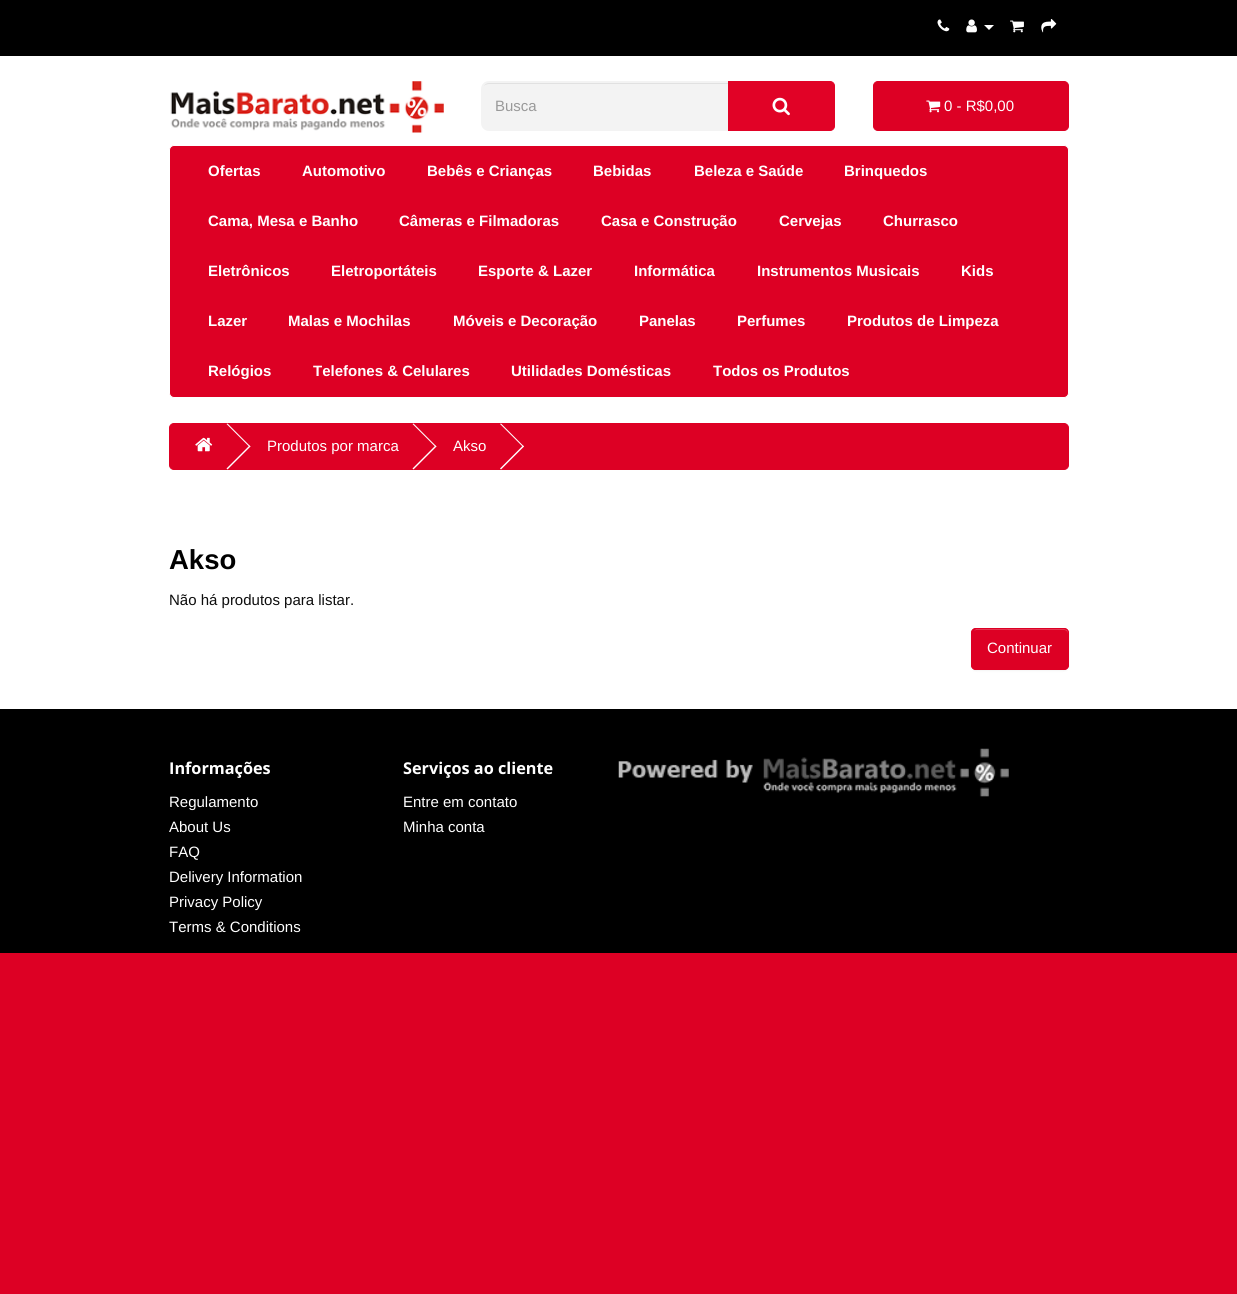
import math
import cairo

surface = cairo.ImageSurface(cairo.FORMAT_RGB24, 1237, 1294)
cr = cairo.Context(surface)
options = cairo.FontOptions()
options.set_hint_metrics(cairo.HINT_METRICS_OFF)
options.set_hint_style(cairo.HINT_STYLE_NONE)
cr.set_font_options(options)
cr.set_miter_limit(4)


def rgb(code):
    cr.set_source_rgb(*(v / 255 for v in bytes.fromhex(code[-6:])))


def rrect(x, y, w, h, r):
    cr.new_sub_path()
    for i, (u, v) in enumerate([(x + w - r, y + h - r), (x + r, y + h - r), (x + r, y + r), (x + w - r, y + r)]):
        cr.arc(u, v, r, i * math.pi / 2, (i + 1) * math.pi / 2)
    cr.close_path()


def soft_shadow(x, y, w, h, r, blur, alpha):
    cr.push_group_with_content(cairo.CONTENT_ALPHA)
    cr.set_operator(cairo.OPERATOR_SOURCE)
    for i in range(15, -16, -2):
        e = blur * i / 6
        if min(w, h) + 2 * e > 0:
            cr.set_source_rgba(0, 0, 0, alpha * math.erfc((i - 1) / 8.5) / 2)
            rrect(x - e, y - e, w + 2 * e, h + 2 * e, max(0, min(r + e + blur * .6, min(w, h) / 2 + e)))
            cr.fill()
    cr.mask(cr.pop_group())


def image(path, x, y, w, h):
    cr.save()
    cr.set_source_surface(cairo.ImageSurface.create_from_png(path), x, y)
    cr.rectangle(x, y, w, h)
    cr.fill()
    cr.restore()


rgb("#dd0024")
cr.paint()
rgb("#ffffff")
cr.rectangle(0, 56, 1237, 653)
cr.fill()
rgb("#000000")
cr.rectangle(0, 0, 1237, 56)
cr.fill()
image("img/1.png", 937, 19, 13, 13)
image("img/2.png", 966, 19, 11, 14)
rgb("#ffffff")
cr.new_path()
cr.move_to(984, 25)
cr.line_to(994, 25)
cr.line_to(989, 30)
cr.close_path()
cr.fill()
image("img/3.png", 1010, 20, 14, 13)
image("img/4.png", 1041, 19, 16, 14)
image("img/5.png", 170, 81, 274, 52)
rgb("#f3f3f3")
cr.new_path()
cr.move_to(489, 81)
cr.line_to(729, 81)
cr.line_to(729, 131)
cr.line_to(489, 131)
cr.curve_to(484.5, 131, 481, 127.5, 481, 123)
cr.line_to(481, 89)
cr.curve_to(481, 84.5, 484.5, 81, 489, 81)
cr.close_path()
cr.fill()
rgb("#e1e1e1")
cr.new_path()
cr.move_to(489, 84)
cr.line_to(728, 84)
cr.line_to(728, 83)
cr.line_to(489, 83)
cr.curve_to(487, 83, 485, 84, 484, 86)
cr.curve_to(485, 85, 487, 84, 489, 84)
cr.close_path()
cr.fill()
rgb("#e10226")
cr.new_path()
cr.move_to(728.5, 81.5)
cr.line_to(830, 81.5)
cr.curve_to(832.5, 81.5, 834.5, 83.5, 834.5, 86)
cr.line_to(834.5, 126)
cr.curve_to(834.5, 128.5, 832.5, 130.5, 830, 130.5)
cr.line_to(728.5, 130.5)
cr.close_path()
cr.fill_preserve()
cr.set_line_width(1)
cr.stroke()
image("img/6.png", 772, 97, 18, 19)
rgb("#dd0024")
rrect(873.5, 81.5, 195, 49, 4.5)
cr.fill_preserve()
cr.stroke()
image("img/7.png", 926, 100, 15, 13)
rrect(169.5, 145.5, 899, 252, 4.5)
cr.fill_preserve()
rgb("#ffffff")
cr.stroke()
rgb("#dd0024")
rrect(169.5, 423.5, 899, 46, 4.5)
cr.fill_preserve()
cr.stroke()
image("img/8.png", 195, 437, 18, 15)
rgb("#ffffff")
cr.new_path()
cr.move_to(226.5, 424)
cr.line_to(227.5, 423.5)
cr.line_to(250.5, 446.5)
cr.line_to(249.5, 447)
cr.close_path()
cr.fill()
cr.new_path()
cr.move_to(226.5, 468.5)
cr.line_to(249.5, 445.5)
cr.line_to(250.5, 446.5)
cr.line_to(227.5, 469.5)
cr.close_path()
cr.fill()
cr.new_path()
cr.move_to(412.5, 424)
cr.line_to(413.5, 423.5)
cr.line_to(436.5, 446.5)
cr.line_to(435.5, 447)
cr.close_path()
cr.fill()
cr.new_path()
cr.move_to(412.5, 468.5)
cr.line_to(435.5, 445.5)
cr.line_to(436.5, 446.5)
cr.line_to(413.5, 469.5)
cr.close_path()
cr.fill()
cr.new_path()
cr.move_to(500, 424)
cr.line_to(501, 423.5)
cr.line_to(524, 446.5)
cr.line_to(523, 447)
cr.close_path()
cr.fill()
cr.new_path()
cr.move_to(500, 468.5)
cr.line_to(523, 445.5)
cr.line_to(524, 446.5)
cr.line_to(501, 469.5)
cr.close_path()
cr.fill()
rgb("#000000")
soft_shadow(971, 629, 98, 42, 5, 1, 0.05)
rgb("#dd0024")
rrect(971, 628, 98, 42, 5)
cr.fill()
rgb("#e43350")
cr.new_path()
cr.move_to(976, 630)
cr.line_to(1064, 630)
cr.curve_to(1066, 630, 1068, 632, 1068, 634)
cr.curve_to(1068, 633, 1068, 631, 1067, 630)
cr.line_to(1064, 629)
cr.line_to(976, 629)
cr.line_to(974, 631)
cr.close_path()
cr.fill()
rrect(971.5, 628.5, 97, 41, 4.5)
rgb("#dd0024")
cr.stroke()
rgb("#000000")
cr.rectangle(0, 709, 1237, 244)
cr.fill()
image("img/9.png", 618, 748, 391, 49)
cr.select_font_face("Liberation Sans")
cr.set_font_size(15)
rgb("#999999")
cr.move_to(495, 111)
cr.show_text("Busca")
rgb("#ffffff")
cr.move_to(944, 111)
cr.show_text("0 - R$0,00")
cr.select_font_face("Liberation Sans", cairo.FONT_SLANT_NORMAL, cairo.FONT_WEIGHT_BOLD)
for x, y, s in [
    (208, 176, "Ofertas"),
    (302, 176, "Automotivo"),
    (427, 176, "Bebês e Crianças"),
    (593, 176, "Bebidas"),
    (694, 176, "Beleza e Saúde"),
    (844, 176, "Brinquedos"),
    (208, 226, "Cama, Mesa e Banho"),
    (399, 226, "Câmeras e Filmadoras"),
    (601, 226, "Casa e Construção"),
    (779, 226, "Cervejas"),
    (883, 226, "Churrasco"),
    (208, 276, "Eletrônicos"),
    (331, 276, "Eletroportáteis"),
    (478, 276, "Esporte & Lazer"),
    (634, 276, "Informática"),
    (757, 276, "Instrumentos Musicais"),
    (961, 276, "Kids"),
    (208, 326, "Lazer"),
    (288, 326, "Malas e Mochilas"),
    (453, 326, "Móveis e Decoração"),
    (639, 326, "Panelas"),
    (737, 326, "Perfumes"),
    (847, 326, "Produtos de Limpeza"),
    (208, 376, "Relógios"),
    (313, 376, "Telefones & Celulares"),
    (511, 376, "Utilidades Domésticas"),
    (713, 376, "Todos os Produtos"),
]:
    cr.move_to(x, y)
    cr.show_text(s)
cr.select_font_face("Liberation Sans")
cr.move_to(267, 451)
cr.show_text("Produtos por marca")
cr.move_to(453, 451)
cr.show_text("Akso")
cr.select_font_face("Liberation Sans", cairo.FONT_SLANT_NORMAL, cairo.FONT_WEIGHT_BOLD)
cr.set_font_size(27.5)
rgb("#000000")
cr.move_to(169, 569)
cr.show_text("Akso")
cr.select_font_face("Liberation Sans")
cr.set_font_size(15)
rgb("#0d0d0d")
cr.move_to(169, 605)
cr.show_text("Não há produtos para listar.")
rgb("#ffffff")
cr.move_to(987, 653)
cr.show_text("Continuar")
cr.select_font_face("Open Sans", cairo.FONT_SLANT_NORMAL, cairo.FONT_WEIGHT_BOLD)
cr.set_font_size(16.25)
cr.move_to(169, 774)
cr.show_text("Informações")
cr.select_font_face("Liberation Sans")
cr.set_font_size(15)
for x, y, s in [
    (169, 807, "Regulamento"),
    (169, 832, "About Us"),
    (169, 857, "FAQ"),
    (169, 882, "Delivery Information"),
    (169, 907, "Privacy Policy"),
    (169, 932, "Terms & Conditions"),
]:
    cr.move_to(x, y)
    cr.show_text(s)
cr.select_font_face("Open Sans", cairo.FONT_SLANT_NORMAL, cairo.FONT_WEIGHT_BOLD)
cr.set_font_size(16.25)
cr.move_to(403, 774)
cr.show_text("Serviços ao cliente")
cr.select_font_face("Liberation Sans")
cr.set_font_size(15)
cr.move_to(403, 807)
cr.show_text("Entre em contato")
cr.move_to(403, 832)
cr.show_text("Minha conta")
surface.write_to_png("page.png")
